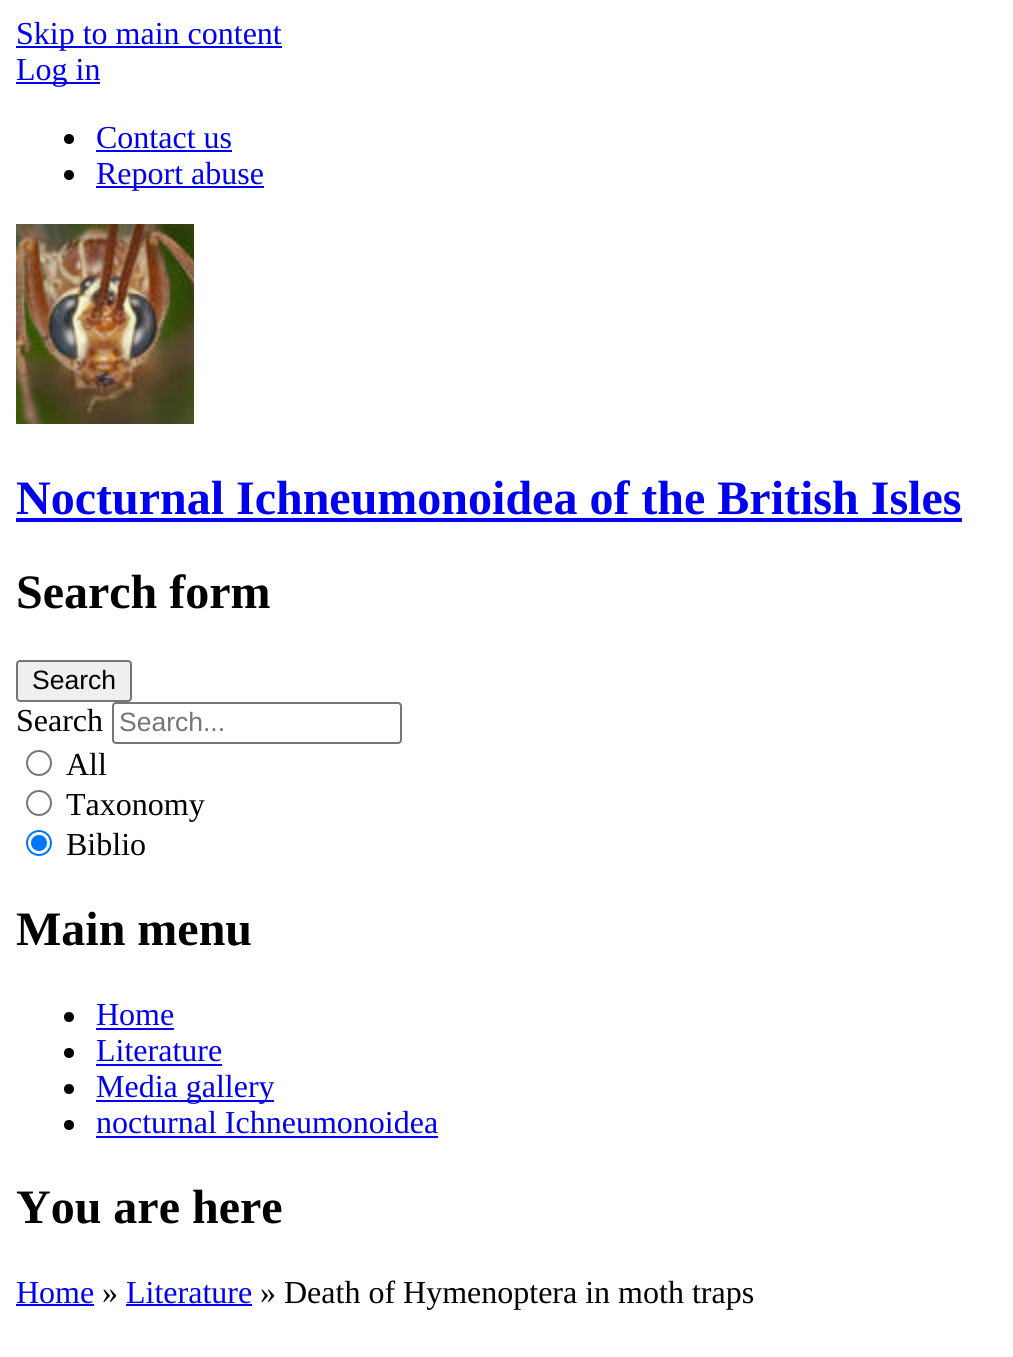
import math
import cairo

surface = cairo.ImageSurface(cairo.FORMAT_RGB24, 1013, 1357)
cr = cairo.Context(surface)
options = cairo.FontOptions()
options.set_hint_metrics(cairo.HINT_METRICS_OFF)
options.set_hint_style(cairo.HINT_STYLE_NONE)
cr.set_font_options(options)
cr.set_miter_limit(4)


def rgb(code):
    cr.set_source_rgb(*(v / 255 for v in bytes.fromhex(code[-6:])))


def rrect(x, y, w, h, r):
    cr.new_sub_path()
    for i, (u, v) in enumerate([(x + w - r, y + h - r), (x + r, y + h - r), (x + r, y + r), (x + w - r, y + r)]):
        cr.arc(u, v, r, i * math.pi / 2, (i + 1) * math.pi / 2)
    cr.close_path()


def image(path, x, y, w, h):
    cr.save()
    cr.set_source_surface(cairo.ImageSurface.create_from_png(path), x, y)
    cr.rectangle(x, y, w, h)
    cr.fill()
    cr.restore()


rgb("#ffffff")
cr.paint()
rgb("#0000ee")
cr.rectangle(16, 46, 266, 2)
cr.fill()
cr.rectangle(16, 82, 84, 2)
cr.fill()
rgb("#000000")
cr.arc(69, 139, 5, 0, 2 * math.pi)
cr.fill()
rgb("#0000ee")
cr.rectangle(96, 150, 136, 2)
cr.fill()
rgb("#000000")
cr.arc(69, 175, 5, 0, 2 * math.pi)
cr.fill()
rgb("#0000ee")
cr.rectangle(96, 186, 168, 2)
cr.fill()
image("img/1.png", 16, 224, 178, 200)
cr.rectangle(16, 518, 946, 4)
cr.fill()
rgb("#efefef")
rrect(17, 661, 114, 40, 3)
cr.fill_preserve()
rgb("#767676")
cr.stroke()
rrect(113, 703, 288, 40, 3)
cr.stroke()
cr.arc(39, 763, 12, 0, 2 * math.pi)
cr.stroke()
cr.arc(39, 803, 12, 0, 2 * math.pi)
cr.stroke()
cr.arc(39, 843, 12, 0, 2 * math.pi)
rgb("#0075ff")
cr.stroke()
cr.arc(39, 843, 8, 0, 2 * math.pi)
cr.fill()
rgb("#000000")
cr.arc(69, 1017, 5, 0, 2 * math.pi)
cr.fill()
rgb("#0000ee")
cr.rectangle(96, 1028, 78, 2)
cr.fill()
rgb("#000000")
cr.arc(69, 1053, 5, 0, 2 * math.pi)
cr.fill()
rgb("#0000ee")
cr.rectangle(96, 1064, 126, 2)
cr.fill()
rgb("#000000")
cr.arc(69, 1089, 5, 0, 2 * math.pi)
cr.fill()
rgb("#0000ee")
cr.rectangle(96, 1100, 178, 2)
cr.fill()
rgb("#000000")
cr.arc(69, 1125, 5, 0, 2 * math.pi)
cr.fill()
for x, y, w, h, color in [
    (96, 1136, 342, 2, "#0000ee"),
    (16, 1304, 78, 2, "#0000ee"),
    (126, 1304, 126, 2, "#0000ee"),
]:
    rgb(color)
    cr.rectangle(x, y, w, h)
    cr.fill()
cr.select_font_face("Liberation Serif")
cr.set_font_size(32)
for x, y, s in [
    (16, 44, "Skip to main content"),
    (16, 80, "Log in"),
    (96, 148, "Contact us"),
    (96, 184, "Report abuse"),
]:
    cr.move_to(x, y)
    cr.show_text(s)
cr.select_font_face("Liberation Serif", cairo.FONT_SLANT_NORMAL, cairo.FONT_WEIGHT_BOLD)
cr.set_font_size(48)
cr.move_to(16, 514)
cr.show_text("Nocturnal Ichneumonoidea of the British Isles")
rgb("#000000")
cr.move_to(16, 608)
cr.show_text("Search form")
cr.select_font_face("Liberation Sans")
cr.set_font_size(26.5)
cr.move_to(32, 689)
cr.show_text("Search")
cr.select_font_face("Liberation Serif")
cr.set_font_size(32)
cr.move_to(16, 731)
cr.show_text("Search")
cr.select_font_face("Liberation Sans")
cr.set_font_size(26.5)
rgb("#757575")
cr.move_to(119, 731)
cr.show_text("Search...")
cr.select_font_face("Liberation Serif")
cr.set_font_size(32)
rgb("#000000")
for x, y, s in [
    (66, 775, "All"),
    (66, 815, "Taxonomy"),
    (66, 855, "Biblio"),
]:
    cr.move_to(x, y)
    cr.show_text(s)
cr.select_font_face("Liberation Serif", cairo.FONT_SLANT_NORMAL, cairo.FONT_WEIGHT_BOLD)
cr.set_font_size(48)
cr.move_to(16, 945)
cr.show_text("Main menu")
cr.select_font_face("Liberation Serif")
cr.set_font_size(32)
rgb("#0000ee")
for x, y, s in [
    (96, 1025, "Home"),
    (96, 1061, "Literature"),
    (96, 1097, "Media gallery"),
    (96, 1133, "nocturnal Ichneumonoidea"),
]:
    cr.move_to(x, y)
    cr.show_text(s)
cr.select_font_face("Liberation Serif", cairo.FONT_SLANT_NORMAL, cairo.FONT_WEIGHT_BOLD)
cr.set_font_size(48)
rgb("#000000")
cr.move_to(16, 1223)
cr.show_text("You are here")
cr.select_font_face("Liberation Serif")
cr.set_font_size(32)
rgb("#0000ee")
cr.move_to(16, 1303)
cr.show_text("Home")
rgb("#000000")
cr.move_to(102, 1303)
cr.show_text("»")
rgb("#0000ee")
cr.move_to(126, 1303)
cr.show_text("Literature")
rgb("#000000")
cr.move_to(260, 1303)
cr.show_text("» Death of Hymenoptera in moth traps")
surface.write_to_png("page.png")
